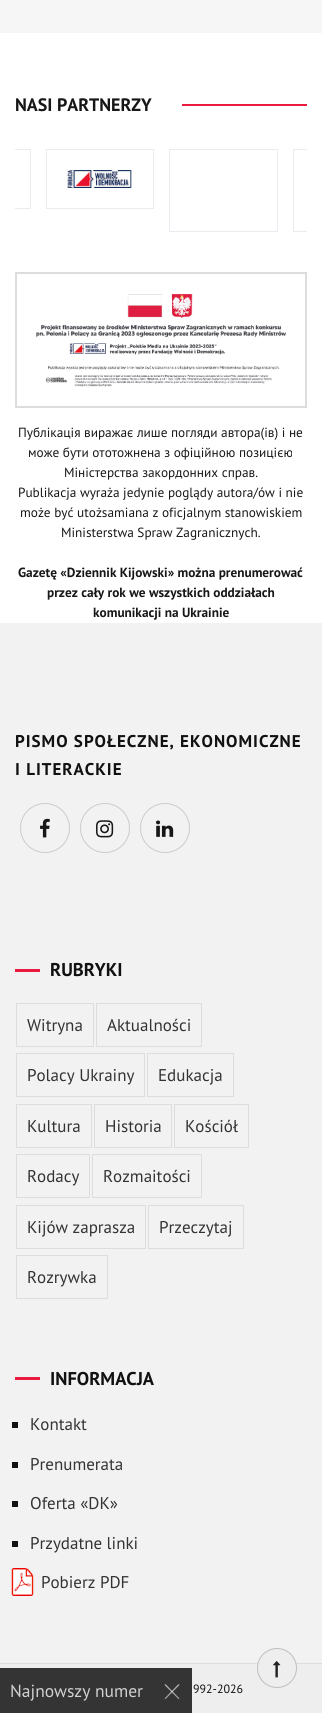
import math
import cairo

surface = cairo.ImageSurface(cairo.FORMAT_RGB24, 322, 1713)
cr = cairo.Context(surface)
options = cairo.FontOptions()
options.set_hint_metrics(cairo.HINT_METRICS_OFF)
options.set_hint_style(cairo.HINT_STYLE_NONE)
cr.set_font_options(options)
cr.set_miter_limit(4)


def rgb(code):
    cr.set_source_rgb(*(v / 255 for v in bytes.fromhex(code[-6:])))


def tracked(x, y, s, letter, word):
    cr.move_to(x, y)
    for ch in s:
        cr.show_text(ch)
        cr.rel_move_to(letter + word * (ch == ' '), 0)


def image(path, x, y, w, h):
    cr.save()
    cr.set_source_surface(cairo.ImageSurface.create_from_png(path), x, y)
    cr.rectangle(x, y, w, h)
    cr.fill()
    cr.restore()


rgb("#ffffff")
cr.paint()
rgb("#f6f6f6")
cr.rectangle(0, 0, 322, 33)
cr.fill()
rgb("#eb1b3f")
cr.rectangle(182, 104, 125, 2)
cr.fill()
cr.save()
cr.rectangle(15, 149, 292, 83)
cr.clip()
cr.rectangle(-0.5, 149.5, 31, 59)
rgb("#eaeaf1")
cr.set_line_width(1)
cr.stroke()
cr.restore()
cr.rectangle(46.5, 149.5, 107, 59)
rgb("#eaeaf1")
cr.set_line_width(1)
cr.stroke()
image("img/1.png", 67, 170, 65, 18)
cr.rectangle(169.5, 149.5, 108, 82)
cr.stroke()
cr.save()
cr.rectangle(15, 149, 292, 83)
cr.clip()
cr.rectangle(293.5, 149.5, 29, 82)
cr.stroke()
cr.restore()
cr.rectangle(16, 273, 290, 134)
rgb("#dddddd")
cr.set_line_width(2)
cr.stroke()
image("img/2.png", 36, 293, 250, 94)
rgb("#f2f2f2")
cr.rectangle(0, 623, 322, 1040)
cr.fill()
cr.arc(45, 828, 24.5, 0, 2 * math.pi)
rgb("#cccccc")
cr.set_line_width(1)
cr.stroke()
image("img/3.png", 40, 818, 10, 20)
cr.arc(105, 828, 24.5, 0, 2 * math.pi)
cr.stroke()
image("img/4.png", 96, 820, 18, 18)
cr.arc(165, 828, 24.5, 0, 2 * math.pi)
cr.stroke()
image("img/5.png", 156, 820, 18, 17)
rgb("#eb1b3f")
cr.rectangle(15, 969, 25, 3)
cr.fill()
cr.rectangle(16.5, 1003.5, 77, 43)
rgb("#dddddd")
cr.stroke()
cr.rectangle(96.5, 1003.5, 105, 43)
cr.stroke()
cr.rectangle(16.5, 1053.5, 128, 43)
cr.stroke()
cr.rectangle(147.5, 1053.5, 86, 43)
cr.stroke()
cr.rectangle(16.5, 1104.5, 75, 43)
cr.stroke()
cr.rectangle(94.5, 1104.5, 77, 43)
cr.stroke()
cr.rectangle(174.5, 1104.5, 74, 43)
cr.stroke()
cr.rectangle(16.5, 1154.5, 73, 43)
cr.stroke()
cr.rectangle(92.5, 1154.5, 109, 43)
cr.stroke()
cr.rectangle(16.5, 1205.5, 129, 43)
cr.stroke()
cr.rectangle(148.5, 1205.5, 95, 43)
cr.stroke()
cr.rectangle(16.5, 1255.5, 91, 43)
cr.stroke()
for x, y, w, h, color in [
    (15, 1377, 25, 3, "#eb1b3f"),
    (12, 1422, 6, 6, "#111111"),
    (12, 1462, 6, 6, "#111111"),
    (12, 1501, 6, 6, "#111111"),
    (12, 1541, 6, 6, "#111111"),
]:
    rgb(color)
    cr.rectangle(x, y, w, h)
    cr.fill()
image("img/6.png", 11, 1568, 23, 28)
rgb("#eeeeee")
cr.rectangle(0, 1664, 322, 49)
cr.fill()
rgb("#dddddd")
cr.rectangle(0, 1663, 322, 1)
cr.fill()
rgb("#eeeeee")
cr.arc(277, 1668, 19.5, 0, 2 * math.pi)
cr.fill_preserve()
rgb("#bfbfbf")
cr.stroke()
image("img/7.png", 273, 1661, 8, 17)
cr.set_source_rgba(0, 0, 0, 0.78)
cr.rectangle(0, 1668, 192, 45)
cr.fill()
cr.set_source_rgba(1, 1, 1, 0.59)
cr.new_path()
cr.move_to(164.5, 1698.5)
cr.line_to(178.5, 1684)
cr.line_to(179.5, 1685)
cr.line_to(165.5, 1699)
cr.close_path()
cr.fill()
cr.new_path()
cr.move_to(165.5, 1684)
cr.line_to(179.5, 1698.5)
cr.line_to(178.5, 1699)
cr.line_to(164.5, 1685)
cr.close_path()
cr.fill()
cr.select_font_face("PT Sans", cairo.FONT_SLANT_NORMAL, cairo.FONT_WEIGHT_BOLD)
cr.set_font_size(18)
rgb("#171717")
cr.move_to(15, 111)
cr.show_text("NASI PARTNERZY")
cr.select_font_face("PT Sans")
cr.set_font_size(13.3)
for x, y, s in [
    (18, 437, "Публікація виражає лише погляди автора(ів) і не"),
    (28, 457, "може бути ототожнена з офіційною позицією"),
    (64, 477, "Міністерства закордонних справ."),
    (18, 497, "Publikacja wyraża jedynie poglądy autora/ów i nie"),
    (20, 517, "może być utożsamiana z oficjalnym stanowiskiem"),
    (61, 537, "Ministerstwa Spraw Zagranicznych."),
]:
    cr.move_to(x, y)
    cr.show_text(s)
cr.select_font_face("PT Sans", cairo.FONT_SLANT_NORMAL, cairo.FONT_WEIGHT_BOLD)
for x, y, s in [
    (18, 577, "Gazetę «Dziennik Kijowski» można prenumerować"),
    (47, 597, "przez cały rok we wszystkich oddziałach"),
    (93, 617, "komunikacji na Ukrainie"),
]:
    cr.move_to(x, y)
    cr.show_text(s)
cr.set_font_size(17)
rgb("#111111")
tracked(15, 747, "PISMO SPOŁECZNE, EKONOMICZNE", 1, 0)
tracked(15, 775, "I LITERACKIE", 1, 0)
cr.set_font_size(18.5)
cr.move_to(50, 976)
cr.show_text("RUBRYKI")
cr.select_font_face("PT Sans")
cr.set_font_size(17)
rgb("#333333")
for x, y, s in [
    (27, 1031, "Witryna"),
    (107, 1031, "Aktualności"),
    (27, 1081, "Polacy Ukrainy"),
    (158, 1081, "Edukacja"),
    (27, 1132, "Kultura"),
    (105, 1132, "Historia"),
    (185, 1132, "Kościół"),
    (27, 1182, "Rodacy"),
    (103, 1182, "Rozmaitości"),
    (27, 1233, "Kijów zaprasza"),
    (159, 1233, "Przeczytaj"),
    (27, 1283, "Rozrywka"),
]:
    cr.move_to(x, y)
    cr.show_text(s)
cr.select_font_face("PT Sans", cairo.FONT_SLANT_NORMAL, cairo.FONT_WEIGHT_BOLD)
cr.set_font_size(18.5)
rgb("#111111")
cr.move_to(50, 1385)
cr.show_text("INFORMACJA")
cr.select_font_face("PT Sans")
cr.set_font_size(17)
rgb("#333333")
for x, y, s in [
    (30, 1430, "Kontakt"),
    (30, 1470, "Prenumerata"),
    (30, 1509, "Oferta «DK»"),
    (30, 1549, "Przydatne linki"),
    (41, 1588, "Pobierz PDF"),
]:
    cr.move_to(x, y)
    cr.show_text(s)
cr.set_font_size(12)
rgb("#111111")
cr.move_to(193, 1693)
cr.show_text("992-2026")
cr.set_font_size(17.5)
rgb("#d2d2d2")
cr.move_to(10, 1697)
cr.show_text("Najnowszy numer")
surface.write_to_png("page.png")
